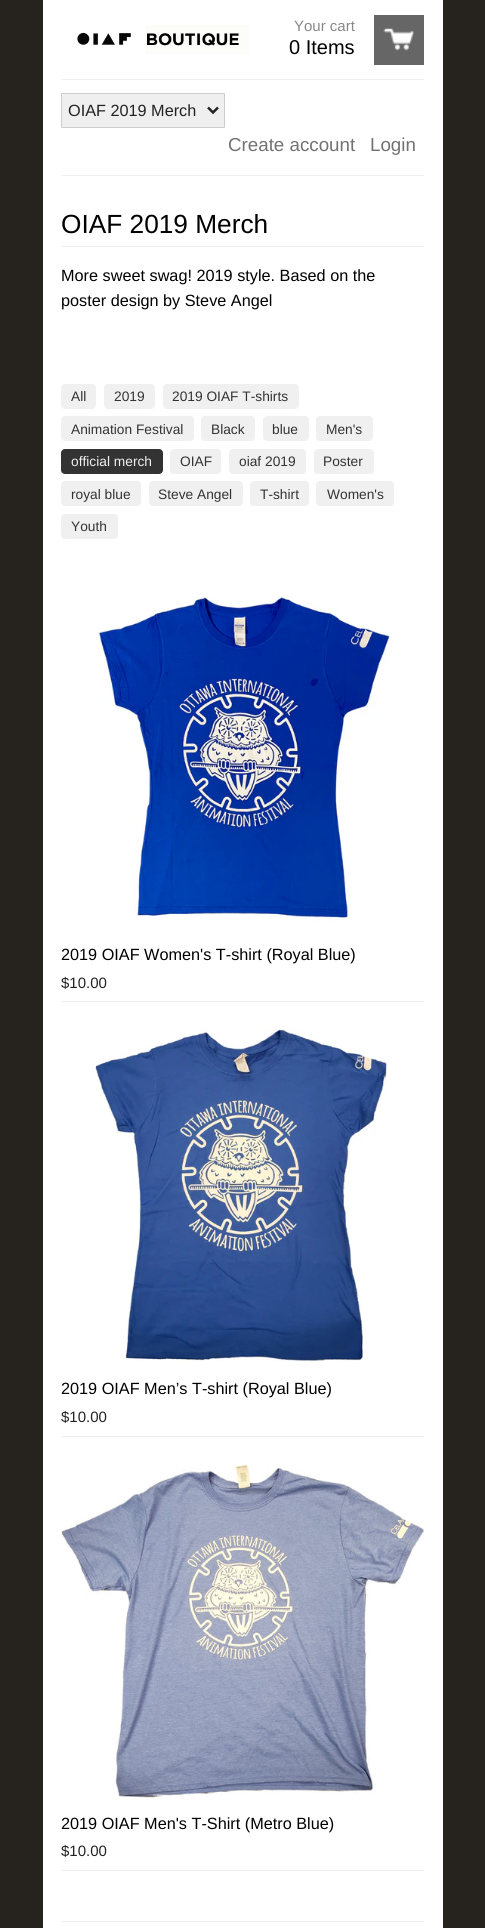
import math
import cairo

surface = cairo.ImageSurface(cairo.FORMAT_RGB24, 485, 1928)
cr = cairo.Context(surface)
options = cairo.FontOptions()
options.set_hint_metrics(cairo.HINT_METRICS_OFF)
options.set_hint_style(cairo.HINT_STYLE_NONE)
cr.set_font_options(options)
cr.set_miter_limit(4)


def rgb(code):
    cr.set_source_rgb(*(v / 255 for v in bytes.fromhex(code[-6:])))


def rrect(x, y, w, h, r):
    cr.new_sub_path()
    for i, (u, v) in enumerate([(x + w - r, y + h - r), (x + r, y + h - r), (x + r, y + r), (x + w - r, y + r)]):
        cr.arc(u, v, r, i * math.pi / 2, (i + 1) * math.pi / 2)
    cr.close_path()


def image(path, x, y, w, h):
    cr.save()
    cr.set_source_surface(cairo.ImageSurface.create_from_png(path), x, y)
    cr.rectangle(x, y, w, h)
    cr.fill()
    cr.restore()


rgb("#26221e")
cr.paint()
rgb("#ffffff")
cr.rectangle(43, 0, 400, 1928)
cr.fill()
image("img/1.png", 77, 25, 172, 29)
rgb("#666666")
cr.rectangle(374, 15, 50, 50)
cr.fill()
image("img/2.png", 383, 28, 31, 23)
rgb("#f0f0f0")
cr.rectangle(61, 79, 363, 1)
cr.fill()
cr.rectangle(61, 175, 363, 1)
cr.fill()
rgb("#efefef")
rrect(61.5, 93.5, 163, 34, 0.5)
cr.fill_preserve()
rgb("#cccccc")
cr.set_line_width(1)
cr.stroke()
cr.new_path()
cr.move_to(208, 107.5)
cr.line_to(213, 112.5)
cr.line_to(218, 107.5)
rgb("#222222")
cr.set_line_width(2.5)
cr.stroke()
rgb("#f0f0f0")
cr.rectangle(61, 246, 363, 1)
cr.fill()
rrect(61, 384, 35, 25, 4)
cr.fill()
rrect(104, 384, 51, 25, 4)
cr.fill()
rrect(163, 384, 136, 25, 4)
cr.fill()
rrect(61, 416, 133, 25, 4)
cr.fill()
rrect(201, 416, 54, 25, 4)
cr.fill()
rrect(263, 416, 46, 25, 4)
cr.fill()
rrect(316, 416, 57, 25, 4)
cr.fill()
rgb("#333333")
rrect(61, 449, 102, 25, 4)
cr.fill()
rgb("#f0f0f0")
rrect(170, 449, 51, 25, 4)
cr.fill()
rrect(229, 449, 77, 25, 4)
cr.fill()
rrect(314, 449, 60, 25, 4)
cr.fill()
rrect(61, 481, 80, 25, 4)
cr.fill()
rrect(149, 481, 94, 25, 4)
cr.fill()
rrect(250, 481, 59, 25, 4)
cr.fill()
rrect(316, 481, 78, 25, 4)
cr.fill()
rrect(61, 514, 57, 25, 4)
cr.fill()
cr.rectangle(61, 1001, 363, 1)
cr.fill()
image("img/3.png", 97, 595, 294, 327)
cr.rectangle(61, 1436, 363, 1)
cr.fill()
image("img/4.png", 95, 1028, 293, 334)
cr.rectangle(61, 1870, 363, 1)
cr.fill()
image("img/5.png", 61, 1463, 363, 337)
cr.rectangle(61, 1921, 363, 1)
cr.fill()
cr.select_font_face("Liberation Sans")
cr.set_font_size(15)
rgb("#888888")
cr.move_to(294, 31)
cr.show_text("Your cart")
cr.set_font_size(20)
rgb("#000000")
cr.move_to(289, 54)
cr.show_text("0 Items")
cr.set_font_size(16.25)
rgb("#222222")
cr.move_to(68, 116)
cr.show_text("OIAF 2019 Merch")
cr.set_font_size(18.75)
rgb("#727272")
cr.move_to(228, 151)
cr.show_text("Create account")
cr.move_to(370, 151)
cr.show_text("Login")
cr.set_font_size(26.25)
rgb("#000000")
cr.move_to(61, 233)
cr.show_text("OIAF 2019 Merch")
cr.set_font_size(16.25)
cr.move_to(61, 281)
cr.show_text("More sweet swag! 2019 style. Based on the")
cr.move_to(61, 306)
cr.show_text("poster design by Steve Angel")
cr.set_font_size(13.75)
rgb("#333333")
for x, y, s in [
    (71, 401, "All"),
    (114, 401, "2019"),
    (172, 401, "2019 OIAF T-shirts"),
    (71, 434, "Animation Festival"),
    (211, 434, "Black"),
    (272, 434, "blue"),
    (326, 434, "Men's"),
]:
    cr.move_to(x, y)
    cr.show_text(s)
rgb("#f0f0f0")
cr.move_to(71, 466)
cr.show_text("official merch")
rgb("#333333")
for x, y, s in [
    (180, 466, "OIAF"),
    (239, 466, "oiaf 2019"),
    (323, 466, "Poster"),
    (71, 499, "royal blue"),
    (158, 499, "Steve Angel"),
    (260, 499, "T-shirt"),
    (327, 499, "Women's"),
    (71, 531, "Youth"),
]:
    cr.move_to(x, y)
    cr.show_text(s)
cr.set_font_size(16.25)
rgb("#000000")
cr.move_to(61, 960)
cr.show_text("2019 OIAF Women's T-shirt (Royal Blue)")
cr.set_font_size(15)
rgb("#222222")
cr.move_to(61, 988)
cr.show_text("$10.00")
cr.set_font_size(16.25)
rgb("#000000")
cr.move_to(61, 1394)
cr.show_text("2019 OIAF Men’s T-shirt (Royal Blue)")
cr.set_font_size(15)
rgb("#222222")
cr.move_to(61, 1422)
cr.show_text("$10.00")
cr.set_font_size(16.25)
rgb("#000000")
cr.move_to(61, 1829)
cr.show_text("2019 OIAF Men's T-Shirt (Metro Blue)")
cr.set_font_size(15)
rgb("#222222")
cr.move_to(61, 1856)
cr.show_text("$10.00")
surface.write_to_png("page.png")
